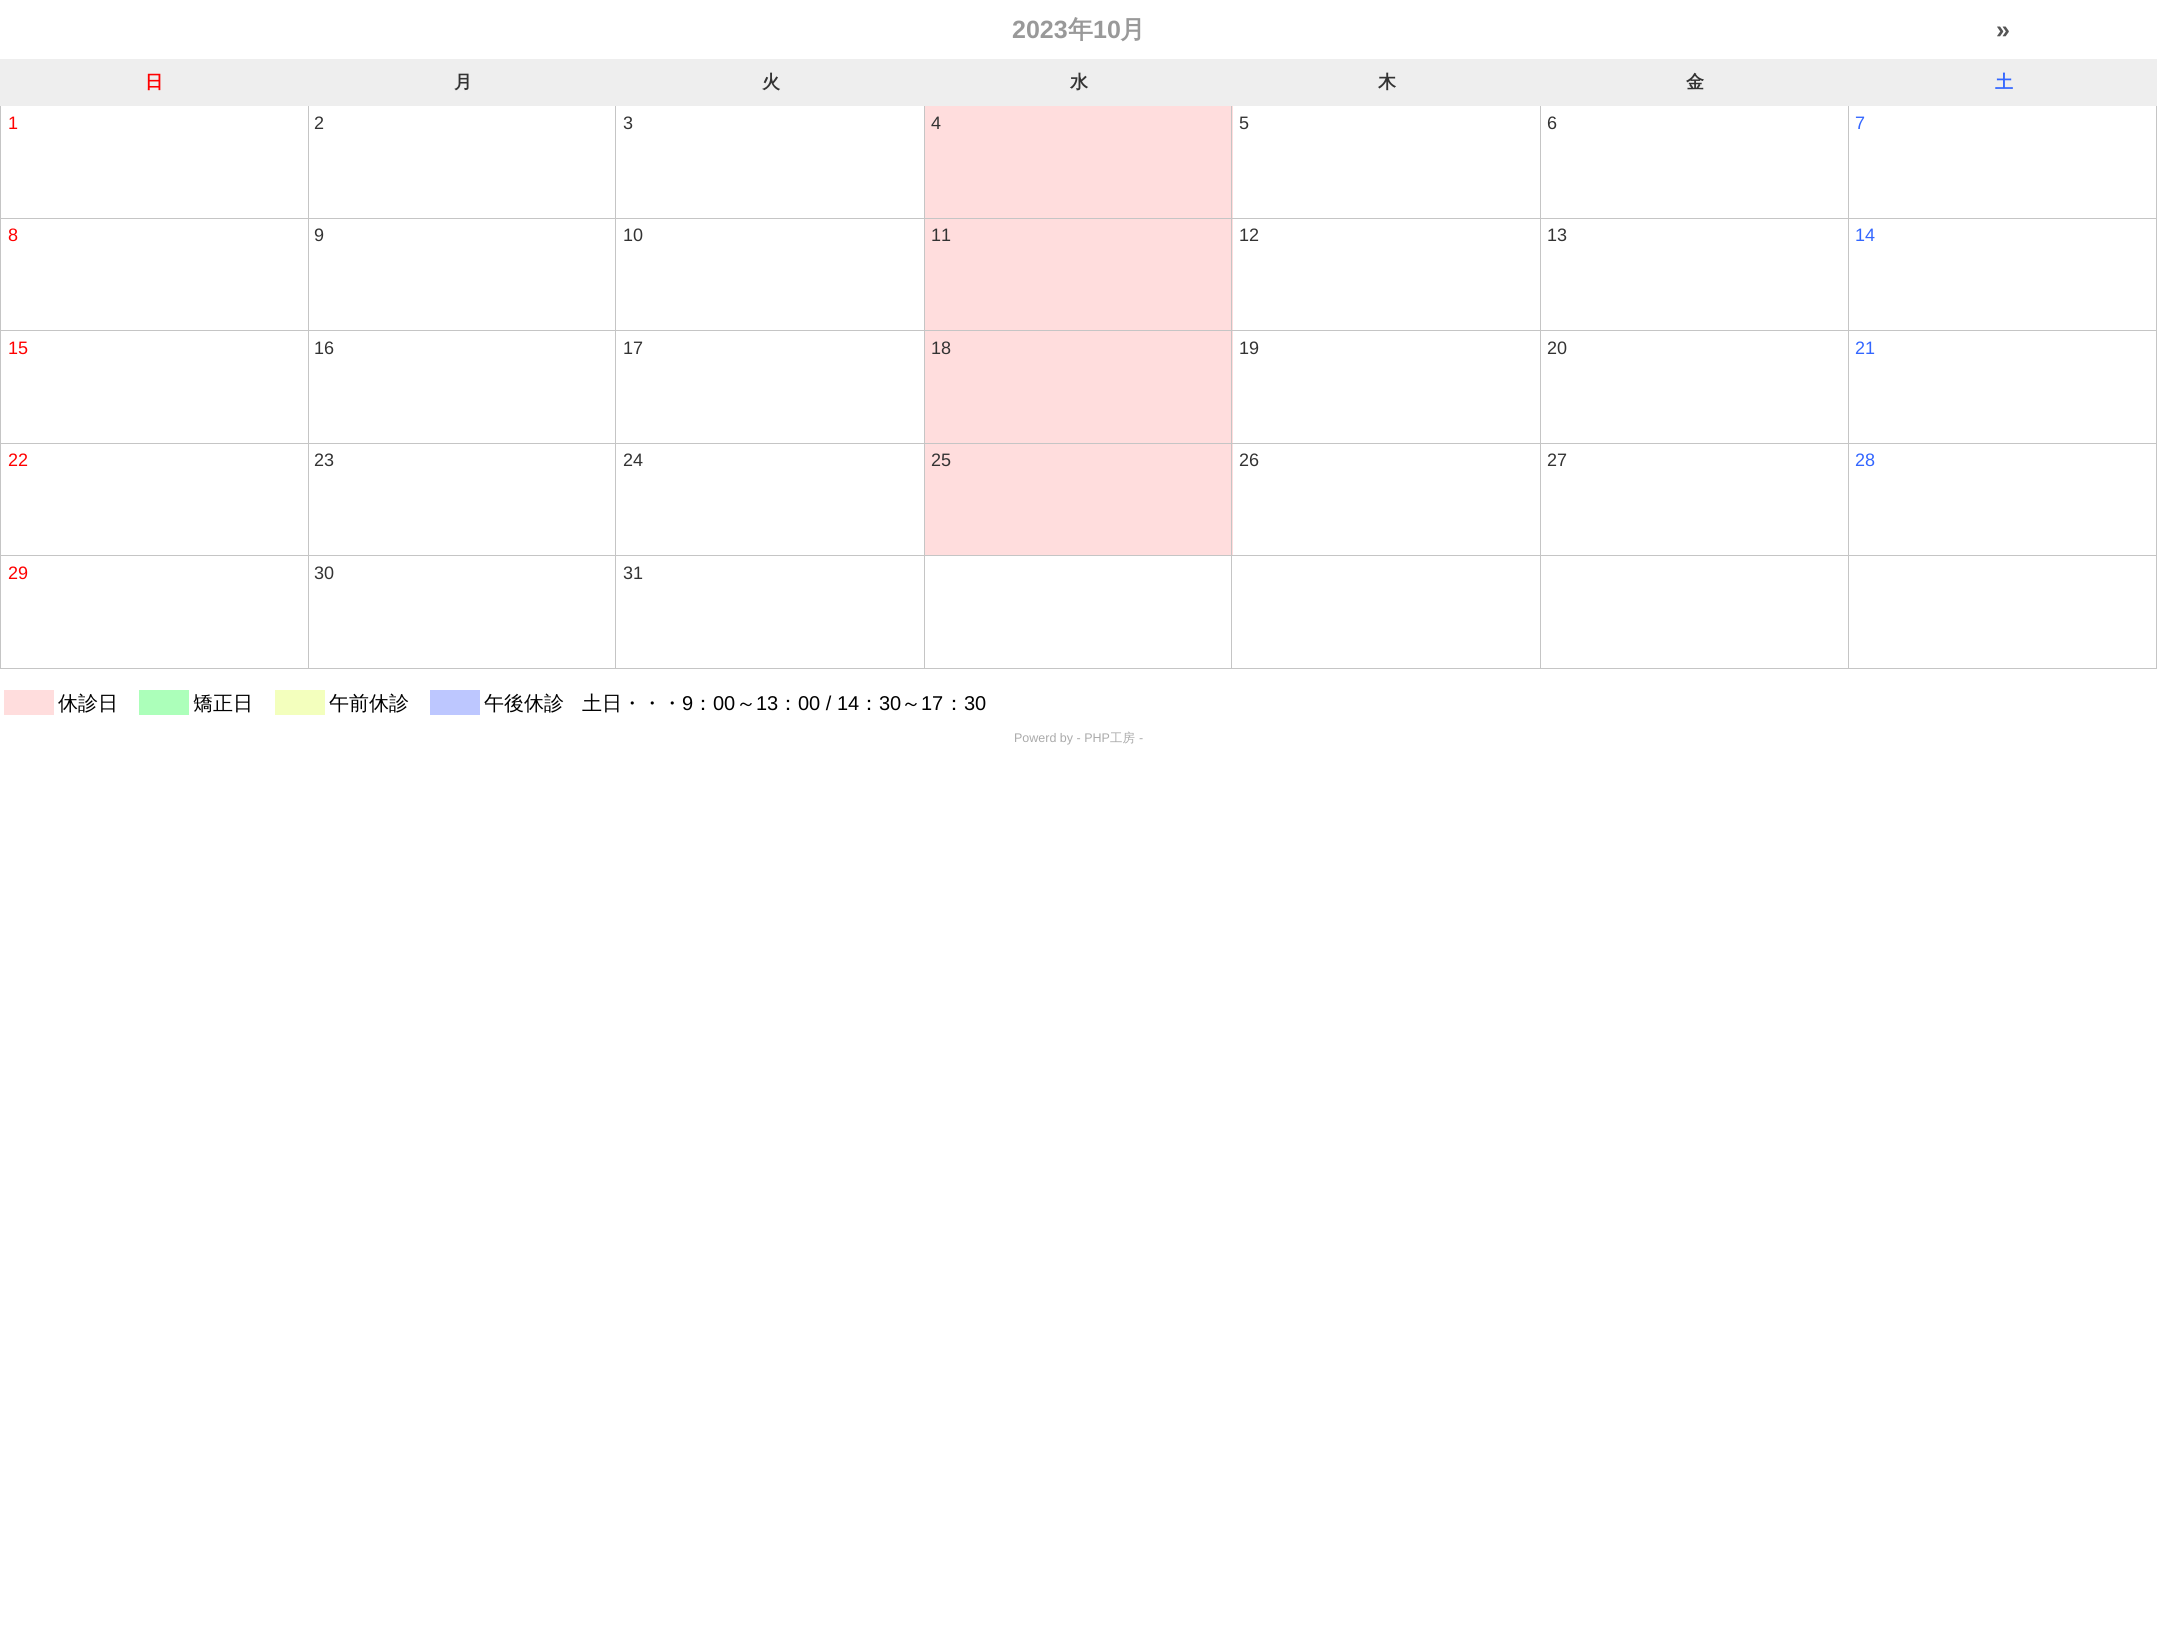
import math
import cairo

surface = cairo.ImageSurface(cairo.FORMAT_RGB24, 2157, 1635)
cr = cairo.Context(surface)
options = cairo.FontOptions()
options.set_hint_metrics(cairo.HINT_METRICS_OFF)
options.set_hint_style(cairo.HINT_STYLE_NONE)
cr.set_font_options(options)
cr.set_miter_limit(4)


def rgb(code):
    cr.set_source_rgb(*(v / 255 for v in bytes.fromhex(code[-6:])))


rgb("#ffffff")
cr.paint()
for x, y, w, h, color in [
    (0, 59, 2157, 47, "#eeeeee"),
    (308, 106, 1, 563, "#c5c5c5"),
    (0, 218, 309, 1, "#c5c5c5"),
    (0, 106, 1, 113, "#c5c5c5"),
    (615, 106, 1, 563, "#c5c5c5"),
    (309, 218, 307, 1, "#c5c5c5"),
    (924, 106, 1, 563, "#c5c5c5"),
    (616, 218, 309, 1, "#c5c5c5"),
    (925, 106, 308, 112, "#ffdddd"),
    (1231, 106, 1, 113, "#c5c5c5"),
    (925, 218, 308, 1, "#c5c5c5"),
    (1540, 106, 1, 563, "#c5c5c5"),
    (1233, 218, 308, 1, "#c5c5c5"),
    (1848, 106, 1, 563, "#c5c5c5"),
    (1541, 218, 308, 1, "#c5c5c5"),
    (2156, 106, 1, 563, "#c5c5c5"),
    (1849, 218, 308, 1, "#c5c5c5"),
    (0, 330, 925, 1, "#c5c5c5"),
    (0, 219, 1, 112, "#c5c5c5"),
    (925, 219, 308, 111, "#ffdddd"),
    (1231, 219, 1, 112, "#c5c5c5"),
    (925, 330, 1232, 1, "#c5c5c5"),
    (0, 443, 925, 1, "#c5c5c5"),
    (0, 331, 1, 113, "#c5c5c5"),
    (925, 331, 308, 112, "#ffdddd"),
    (1231, 331, 1, 113, "#c5c5c5"),
    (925, 443, 1232, 1, "#c5c5c5"),
    (0, 555, 925, 1, "#c5c5c5"),
    (0, 444, 1, 112, "#c5c5c5"),
    (925, 444, 308, 111, "#ffdddd"),
    (1231, 444, 1, 225, "#c5c5c5"),
    (925, 555, 1232, 1, "#c5c5c5"),
    (0, 668, 2157, 1, "#c5c5c5"),
    (0, 556, 1, 113, "#c5c5c5"),
    (4, 690, 50, 25, "#ffdddd"),
    (139, 690, 50, 25, "#acffba"),
    (275, 690, 50, 25, "#f3ffbd"),
    (430, 690, 50, 25, "#bdc7ff"),
]:
    rgb(color)
    cr.rectangle(x, y, w, h)
    cr.fill()
cr.select_font_face("Liberation Sans", cairo.FONT_SLANT_NORMAL, cairo.FONT_WEIGHT_BOLD)
cr.set_font_size(25)
rgb("#999999")
cr.move_to(1012, 38)
cr.show_text("2023")
cr.select_font_face("WenQuanYi Zen Hei", cairo.FONT_SLANT_NORMAL, cairo.FONT_WEIGHT_BOLD)
cr.move_to(1068, 38)
cr.show_text("年")
cr.select_font_face("Liberation Sans", cairo.FONT_SLANT_NORMAL, cairo.FONT_WEIGHT_BOLD)
cr.move_to(1093, 38)
cr.show_text("10")
cr.select_font_face("WenQuanYi Zen Hei", cairo.FONT_SLANT_NORMAL, cairo.FONT_WEIGHT_BOLD)
cr.move_to(1120, 38)
cr.show_text("月")
cr.select_font_face("Liberation Sans", cairo.FONT_SLANT_NORMAL, cairo.FONT_WEIGHT_BOLD)
rgb("#555555")
cr.move_to(1996, 38)
cr.show_text("»")
cr.select_font_face("WenQuanYi Zen Hei", cairo.FONT_SLANT_NORMAL, cairo.FONT_WEIGHT_BOLD)
cr.set_font_size(18)
rgb("#ff0000")
cr.move_to(145, 88)
cr.show_text("日")
rgb("#333333")
for x, y, s in [
    (454, 88, "月"),
    (762, 88, "火"),
    (1070, 88, "水"),
    (1378, 88, "木"),
    (1686, 88, "金"),
]:
    cr.move_to(x, y)
    cr.show_text(s)
rgb("#3366ff")
cr.move_to(1995, 88)
cr.show_text("土")
cr.select_font_face("Liberation Sans")
rgb("#ff0000")
cr.move_to(8, 129)
cr.show_text("1")
rgb("#333333")
for x, y, s in [
    (314, 129, "2"),
    (623, 129, "3"),
    (931, 129, "4"),
    (1239, 129, "5"),
    (1547, 129, "6"),
]:
    cr.move_to(x, y)
    cr.show_text(s)
rgb("#3366ff")
cr.move_to(1855, 129)
cr.show_text("7")
rgb("#ff0000")
cr.move_to(8, 241)
cr.show_text("8")
rgb("#333333")
for x, y, s in [
    (314, 241, "9"),
    (623, 241, "10"),
    (931, 241, "11"),
    (1239, 241, "12"),
    (1547, 241, "13"),
]:
    cr.move_to(x, y)
    cr.show_text(s)
rgb("#3366ff")
cr.move_to(1855, 241)
cr.show_text("14")
rgb("#ff0000")
cr.move_to(8, 354)
cr.show_text("15")
rgb("#333333")
for x, y, s in [
    (314, 354, "16"),
    (623, 354, "17"),
    (931, 354, "18"),
    (1239, 354, "19"),
    (1547, 354, "20"),
]:
    cr.move_to(x, y)
    cr.show_text(s)
rgb("#3366ff")
cr.move_to(1855, 354)
cr.show_text("21")
rgb("#ff0000")
cr.move_to(8, 466)
cr.show_text("22")
rgb("#333333")
for x, y, s in [
    (314, 466, "23"),
    (623, 466, "24"),
    (931, 466, "25"),
    (1239, 466, "26"),
    (1547, 466, "27"),
]:
    cr.move_to(x, y)
    cr.show_text(s)
rgb("#3366ff")
cr.move_to(1855, 466)
cr.show_text("28")
rgb("#ff0000")
cr.move_to(8, 579)
cr.show_text("29")
rgb("#333333")
cr.move_to(314, 579)
cr.show_text("30")
cr.move_to(623, 579)
cr.show_text("31")
cr.select_font_face("WenQuanYi Zen Hei Medium")
cr.set_font_size(20)
rgb("#000000")
for x, y, s in [
    (58, 710, "休診日"),
    (193, 710, "矯正日"),
    (329, 710, "午前休診"),
    (484, 710, "午後休診"),
    (582, 710, "土日・・・"),
]:
    cr.move_to(x, y)
    cr.show_text(s)
cr.select_font_face("Liberation Sans")
cr.move_to(682, 710)
cr.show_text("9")
cr.select_font_face("WenQuanYi Zen Hei Medium")
cr.move_to(693, 710)
cr.show_text("：")
cr.select_font_face("Liberation Sans")
cr.move_to(713, 710)
cr.show_text("00")
cr.select_font_face("WenQuanYi Zen Hei Medium")
cr.move_to(736, 710)
cr.show_text("～")
cr.select_font_face("Liberation Sans")
cr.move_to(756, 710)
cr.show_text("13")
cr.select_font_face("WenQuanYi Zen Hei Medium")
cr.move_to(778, 710)
cr.show_text("：")
cr.select_font_face("Liberation Sans")
cr.move_to(798, 710)
cr.show_text("00 / 14")
cr.select_font_face("WenQuanYi Zen Hei Medium")
cr.move_to(859, 710)
cr.show_text("：")
cr.select_font_face("Liberation Sans")
cr.move_to(879, 710)
cr.show_text("30")
cr.select_font_face("WenQuanYi Zen Hei Medium")
cr.move_to(901, 710)
cr.show_text("～")
cr.select_font_face("Liberation Sans")
cr.move_to(921, 710)
cr.show_text("17")
cr.select_font_face("WenQuanYi Zen Hei Medium")
cr.move_to(944, 710)
cr.show_text("：")
cr.select_font_face("Liberation Sans")
cr.move_to(964, 710)
cr.show_text("30")
cr.set_font_size(12.5)
rgb("#aaaaaa")
cr.move_to(1014, 742)
cr.show_text("Powerd by - PHP")
cr.select_font_face("WenQuanYi Zen Hei Medium")
cr.move_to(1110, 742)
cr.show_text("工房")
cr.select_font_face("Liberation Sans")
cr.move_to(1139, 742)
cr.show_text("-")
surface.write_to_png("page.png")
